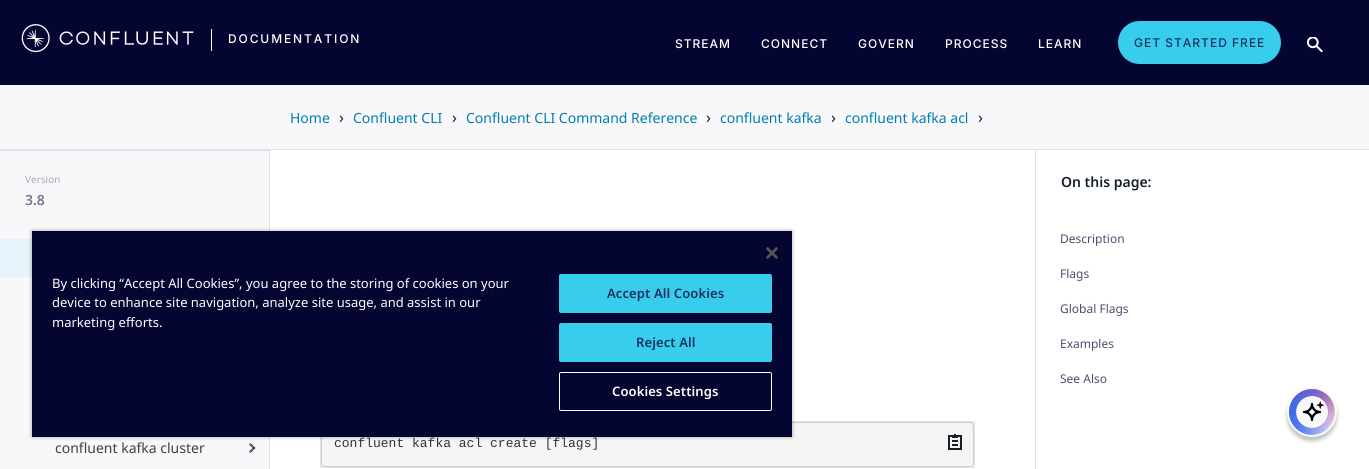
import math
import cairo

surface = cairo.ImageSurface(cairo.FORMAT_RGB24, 1369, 469)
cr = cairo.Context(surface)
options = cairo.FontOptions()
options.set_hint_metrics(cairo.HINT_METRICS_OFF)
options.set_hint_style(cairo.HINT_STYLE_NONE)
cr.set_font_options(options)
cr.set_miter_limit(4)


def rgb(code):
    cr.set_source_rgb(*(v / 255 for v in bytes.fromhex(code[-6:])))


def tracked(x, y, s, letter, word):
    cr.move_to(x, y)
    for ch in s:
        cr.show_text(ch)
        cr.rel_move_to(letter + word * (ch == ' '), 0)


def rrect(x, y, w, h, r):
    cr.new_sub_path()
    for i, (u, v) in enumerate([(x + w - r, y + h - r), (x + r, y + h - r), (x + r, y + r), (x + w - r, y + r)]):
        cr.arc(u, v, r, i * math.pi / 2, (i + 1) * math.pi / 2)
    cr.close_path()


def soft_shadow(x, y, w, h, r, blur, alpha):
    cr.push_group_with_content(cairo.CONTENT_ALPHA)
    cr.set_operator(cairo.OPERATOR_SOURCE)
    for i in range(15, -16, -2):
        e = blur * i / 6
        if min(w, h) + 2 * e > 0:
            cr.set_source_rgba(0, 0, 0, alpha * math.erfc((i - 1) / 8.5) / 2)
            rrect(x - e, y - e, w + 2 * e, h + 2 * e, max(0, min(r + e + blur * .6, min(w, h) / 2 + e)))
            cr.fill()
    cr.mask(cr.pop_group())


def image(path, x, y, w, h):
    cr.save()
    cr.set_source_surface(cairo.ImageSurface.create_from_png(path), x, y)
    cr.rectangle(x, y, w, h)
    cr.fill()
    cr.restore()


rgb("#040531")
cr.paint()
image("img/1.png", 21, 24, 173, 29)
rgb("#ffffff")
cr.rectangle(211, 29, 1, 22)
cr.fill()
rgb("#38cced")
rrect(1118, 21, 163, 43, 21.5)
cr.fill()
image("img/2.png", 1307, 37, 16, 16)
for x, y, w, h, color in [
    (0, 85, 1369, 64, "#f8f8fa"),
    (0, 149, 1369, 1, "#e0e0e7"),
    (0, 151, 269, 318, "#f8f8fa"),
    (269, 150, 1, 319, "#e0e0e7"),
    (0, 150, 269, 1, "#e0e0e7"),
    (0, 239, 32, 38, "#e5f5fb"),
]:
    rgb(color)
    cr.rectangle(x, y, w, h)
    cr.fill()
rgb("#504f6c")
cr.new_path()
cr.move_to(254, 449.5)
cr.line_to(249, 444.5)
cr.line_to(250.5, 443)
cr.line_to(255.5, 448)
cr.close_path()
cr.fill()
cr.new_path()
cr.move_to(250.5, 453)
cr.line_to(249, 451.5)
cr.line_to(254, 446.5)
cr.line_to(255.5, 448)
cr.close_path()
cr.fill()
rgb("#ffffff")
cr.rectangle(270, 150, 1099, 319)
cr.fill()
rgb("#e0e0e7")
cr.rectangle(1035, 150, 1, 319)
cr.fill()
cr.save()
cr.rectangle(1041, 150, 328, 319)
cr.clip()
cr.rectangle(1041, 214, 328, 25)
cr.clip()
rgb("#ffffff")
soft_shadow(1036, 155, 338, 74, 0, 5, 1)
cr.restore()
cr.rectangle(320.5, 421.5, 654, 46)
rgb("#e1e4e5")
cr.set_line_width(1)
cr.stroke()
rgb("#eeffcc")
cr.rectangle(321, 422, 653, 45)
cr.fill()
rgb("#f5f5f5")
rrect(321.5, 422.5, 652, 44, 3.5)
cr.fill_preserve()
rgb("#cccccc")
cr.stroke()
image("img/3.png", 948, 434, 14, 16)
rgb("#000000")
soft_shadow(1287, 391, 50, 50, 25, 2, 0.25)
rgb("#f8f8fa")
cr.arc(1312, 412, 25, 0, 2 * math.pi)
cr.fill()
image("img/4.png", 1289, 389, 46, 46)
rgb("#000000")
soft_shadow(32, 231, 760, 206, 0, 2, 0.35)
rgb("#040531")
cr.rectangle(32, 231, 760, 206)
cr.fill()
image("img/5.png", 766, 247, 12, 12)
rgb("#38cced")
rrect(559.5, 274.5, 212, 38, 1.5)
cr.fill_preserve()
cr.stroke()
rrect(559.5, 323.5, 212, 38, 1.5)
cr.fill_preserve()
cr.stroke()
rrect(559.5, 372.5, 212, 38, 1.5)
rgb("#ffffff")
cr.stroke()
cr.select_font_face("Inter Medium")
cr.set_font_size(12)
tracked(228, 43, "DOCUMENTATION", 1.9, 0)
for x, y, s in [
    (675, 48, "STREAM"),
    (761, 48, "CONNECT"),
    (858, 48, "GOVERN"),
    (945, 48, "PROCESS"),
    (1038, 48, "LEARN"),
]:
    tracked(x, y, s, 1, 0)
rgb("#173361")
tracked(1134, 47, "GET STARTED FREE", 1, 0)
cr.select_font_face("Noto Sans")
cr.set_font_size(14)
rgb("#007eaf")
cr.move_to(290, 123)
cr.show_text("Home")
cr.set_font_size(16)
rgb("#15202b")
cr.move_to(339, 123)
cr.show_text("›")
cr.set_font_size(14)
rgb("#007eaf")
cr.move_to(353, 123)
cr.show_text("Confluent CLI")
cr.set_font_size(16)
rgb("#15202b")
cr.move_to(452, 123)
cr.show_text("›")
cr.set_font_size(14)
rgb("#007eaf")
cr.move_to(466, 123)
cr.show_text("Confluent CLI Command Reference")
cr.set_font_size(16)
rgb("#15202b")
cr.move_to(706, 123)
cr.show_text("›")
cr.set_font_size(14)
rgb("#007eaf")
cr.move_to(720, 123)
cr.show_text("confluent kafka")
cr.set_font_size(16)
rgb("#15202b")
cr.move_to(831, 123)
cr.show_text("›")
cr.set_font_size(14)
rgb("#007eaf")
cr.move_to(845, 123)
cr.show_text("confluent kafka acl")
cr.set_font_size(16)
rgb("#15202b")
cr.move_to(978, 123)
cr.show_text("›")
cr.set_font_size(10)
rgb("#a8a8b8")
cr.move_to(25, 183)
cr.show_text("Version")
cr.select_font_face("Noto Sans SemiBold")
cr.set_font_size(14)
rgb("#747391")
cr.move_to(25, 205)
cr.show_text("3.8")
cr.select_font_face("Noto Sans")
rgb("#404040")
cr.move_to(55, 453)
cr.show_text("confluent kafka cluster")
cr.select_font_face("Noto Sans SemiBold")
rgb("#15202b")
cr.move_to(1061, 187)
cr.show_text("On this page:")
cr.select_font_face("Noto Sans")
cr.set_font_size(12)
rgb("#504f6c")
for x, y, s in [
    (1060, 243, "Description"),
    (1060, 278, "Flags"),
    (1060, 313, "Global Flags"),
    (1060, 348, "Examples"),
    (1060, 383, "See Also"),
]:
    cr.move_to(x, y)
    cr.show_text(s)
cr.select_font_face("Liberation Mono")
cr.set_font_size(13)
rgb("#333333")
cr.move_to(334, 447)
cr.show_text("confluent kafka acl create [flags]")
cr.select_font_face("Noto Sans")
rgb("#ffffff")
for x, y, s in [
    (52, 288, "By clicking “Accept All Cookies”, you agree to the storing of cookies on your"),
    (52, 307, "device to enhance site navigation, analyze site usage, and assist in our"),
    (52, 327, "marketing efforts."),
]:
    cr.move_to(x, y)
    cr.show_text(s)
cr.select_font_face("Noto Sans SemiBold")
rgb("#173361")
tracked(607, 298, "Accept All Cookies", 0.1, 0)
tracked(636, 347, "Reject All", 0.1, 0)
rgb("#ffffff")
tracked(612, 396, "Cookies Settings", 0.1, 0)
surface.write_to_png("page.png")
